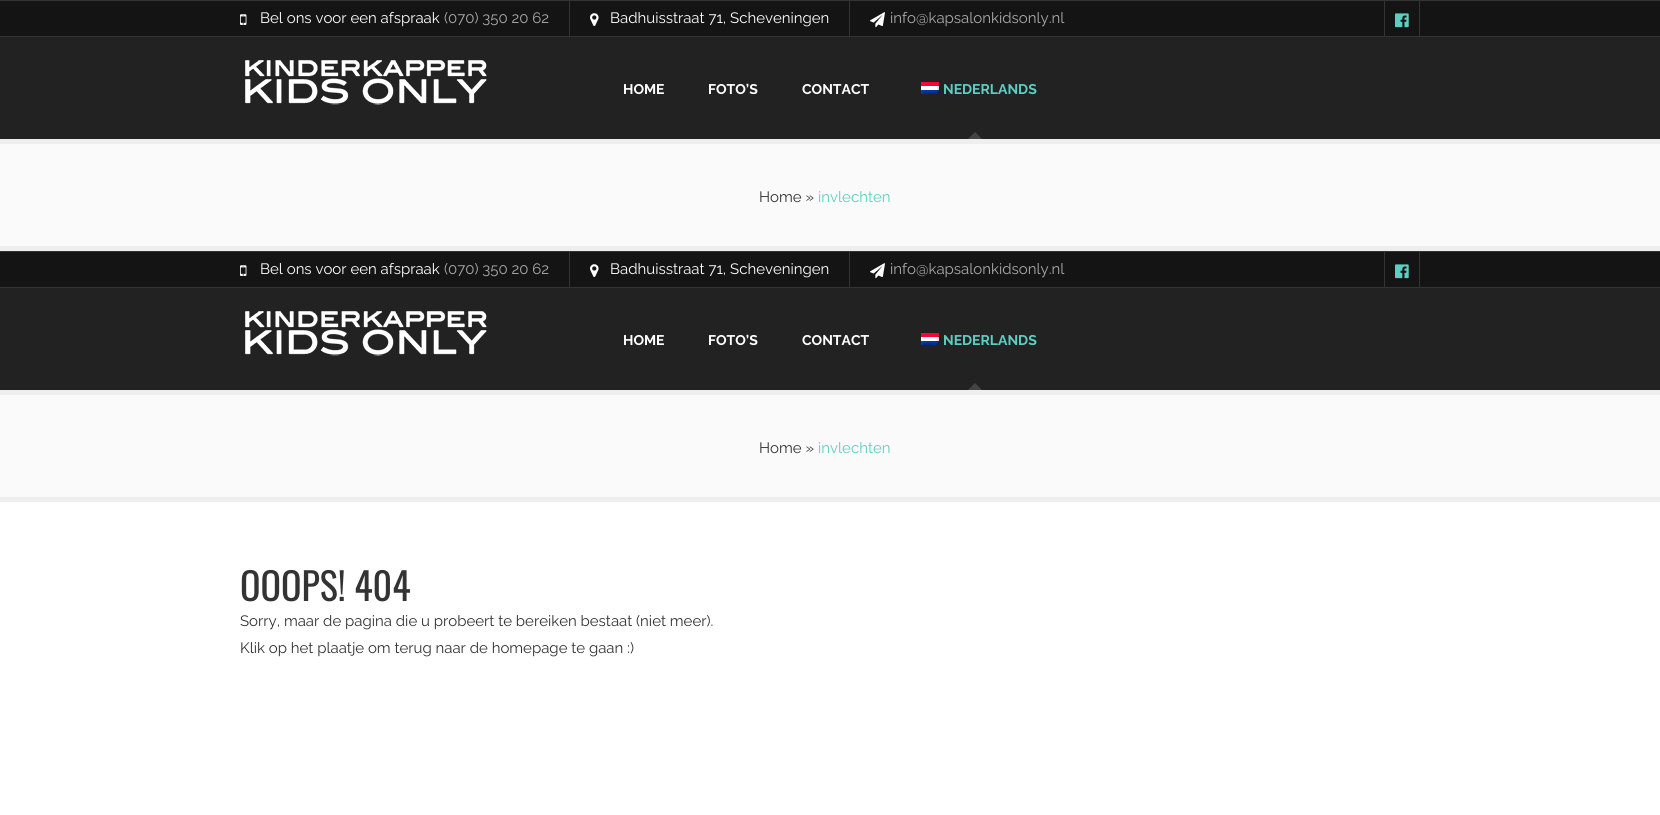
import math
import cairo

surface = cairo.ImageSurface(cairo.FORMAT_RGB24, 1660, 815)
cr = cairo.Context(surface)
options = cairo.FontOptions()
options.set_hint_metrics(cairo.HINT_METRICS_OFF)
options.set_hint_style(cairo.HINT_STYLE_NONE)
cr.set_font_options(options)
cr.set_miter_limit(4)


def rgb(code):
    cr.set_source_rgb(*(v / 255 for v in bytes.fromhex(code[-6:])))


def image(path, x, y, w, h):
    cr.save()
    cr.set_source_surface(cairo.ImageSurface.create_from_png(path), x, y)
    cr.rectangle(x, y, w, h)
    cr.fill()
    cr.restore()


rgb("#ffffff")
cr.paint()
for x, y, w, h, color in [
    (0, 1, 1660, 35, "#141414"),
    (0, 0, 1660, 1, "#333333"),
    (0, 36, 1660, 1, "#333333"),
    (569, 1, 1, 35, "#333333"),
]:
    rgb(color)
    cr.rectangle(x, y, w, h)
    cr.fill()
image("img/1.png", 240, 14, 7, 11)
cr.rectangle(849, 1, 1, 35)
cr.fill()
image("img/2.png", 590, 13, 9, 13)
image("img/3.png", 870, 12, 15, 16)
cr.rectangle(1419, 1, 1, 35)
cr.fill()
cr.rectangle(1384, 1, 1, 35)
cr.fill()
image("img/4.png", 1395, 13, 14, 15)
rgb("#222222")
cr.rectangle(0, 37, 1660, 102)
cr.fill()
image("img/5.png", 245, 60, 242, 45)
image("img/6.png", 921, 82, 18, 12)
rgb("#434343")
cr.new_path()
cr.move_to(982, 139)
cr.line_to(968, 139)
cr.line_to(975, 132)
cr.close_path()
cr.fill()
for x, y, w, h, color in [
    (0, 144, 1660, 102, "#fafafa"),
    (0, 139, 1660, 5, "#eeeeee"),
    (0, 246, 1660, 5, "#eeeeee"),
    (0, 252, 1660, 35, "#141414"),
    (0, 251, 1660, 1, "#333333"),
    (0, 287, 1660, 1, "#333333"),
    (569, 252, 1, 35, "#333333"),
]:
    rgb(color)
    cr.rectangle(x, y, w, h)
    cr.fill()
image("img/1.png", 240, 265, 7, 11)
cr.rectangle(849, 252, 1, 35)
cr.fill()
image("img/2.png", 590, 264, 9, 13)
image("img/3.png", 870, 263, 15, 16)
cr.rectangle(1419, 252, 1, 35)
cr.fill()
cr.rectangle(1384, 252, 1, 35)
cr.fill()
image("img/4.png", 1395, 264, 14, 15)
rgb("#222222")
cr.rectangle(0, 288, 1660, 102)
cr.fill()
image("img/5.png", 245, 311, 242, 45)
image("img/6.png", 921, 333, 18, 12)
rgb("#434343")
cr.new_path()
cr.move_to(982, 390)
cr.line_to(968, 390)
cr.line_to(975, 383)
cr.close_path()
cr.fill()
for x, y, w, h, color in [
    (0, 395, 1660, 102, "#fafafa"),
    (0, 390, 1660, 5, "#eeeeee"),
    (0, 497, 1660, 5, "#eeeeee"),
]:
    rgb(color)
    cr.rectangle(x, y, w, h)
    cr.fill()
cr.select_font_face("Raleway")
cr.set_font_size(15)
rgb("#ffffff")
cr.move_to(260, 23)
cr.show_text("Bel ons voor een afspraak")
rgb("#aaaaaa")
cr.move_to(444, 23)
cr.show_text("(070) 350 20 62")
rgb("#ffffff")
cr.move_to(610, 23)
cr.show_text("Badhuisstraat 71, Scheveningen")
rgb("#aaaaaa")
cr.move_to(890, 23)
cr.show_text("info@kapsalonkidsonly.nl")
cr.select_font_face("Raleway", cairo.FONT_SLANT_NORMAL, cairo.FONT_WEIGHT_BOLD)
cr.set_font_size(14)
rgb("#ffffff")
for x, y, s in [
    (623, 94, "HOME"),
    (708, 94, "FOTO’S"),
    (802, 94, "CONTACT"),
]:
    cr.move_to(x, y)
    cr.show_text(s)
rgb("#5ecec2")
cr.move_to(943, 94)
cr.show_text("NEDERLANDS")
cr.select_font_face("Raleway")
cr.set_font_size(15)
rgb("#333333")
cr.move_to(759, 202)
cr.show_text("Home »")
rgb("#5ecec2")
cr.move_to(818, 202)
cr.show_text("invlechten")
rgb("#ffffff")
cr.move_to(260, 274)
cr.show_text("Bel ons voor een afspraak")
rgb("#aaaaaa")
cr.move_to(444, 274)
cr.show_text("(070) 350 20 62")
rgb("#ffffff")
cr.move_to(610, 274)
cr.show_text("Badhuisstraat 71, Scheveningen")
rgb("#aaaaaa")
cr.move_to(890, 274)
cr.show_text("info@kapsalonkidsonly.nl")
cr.select_font_face("Raleway", cairo.FONT_SLANT_NORMAL, cairo.FONT_WEIGHT_BOLD)
cr.set_font_size(14)
rgb("#ffffff")
for x, y, s in [
    (623, 345, "HOME"),
    (708, 345, "FOTO’S"),
    (802, 345, "CONTACT"),
]:
    cr.move_to(x, y)
    cr.show_text(s)
rgb("#5ecec2")
cr.move_to(943, 345)
cr.show_text("NEDERLANDS")
cr.select_font_face("Raleway")
cr.set_font_size(15)
rgb("#333333")
cr.move_to(759, 453)
cr.show_text("Home »")
rgb("#5ecec2")
cr.move_to(818, 453)
cr.show_text("invlechten")
cr.select_font_face("Oswald")
cr.set_font_size(38)
rgb("#333333")
cr.move_to(240, 601)
cr.show_text("OOOPS! 404")
cr.select_font_face("Raleway")
cr.set_font_size(15)
cr.move_to(240, 626)
cr.show_text("Sorry, maar de pagina die u probeert te bereiken bestaat (niet meer).")
cr.move_to(240, 653)
cr.show_text("Klik op het plaatje om terug naar de homepage te gaan :)")
surface.write_to_png("page.png")
